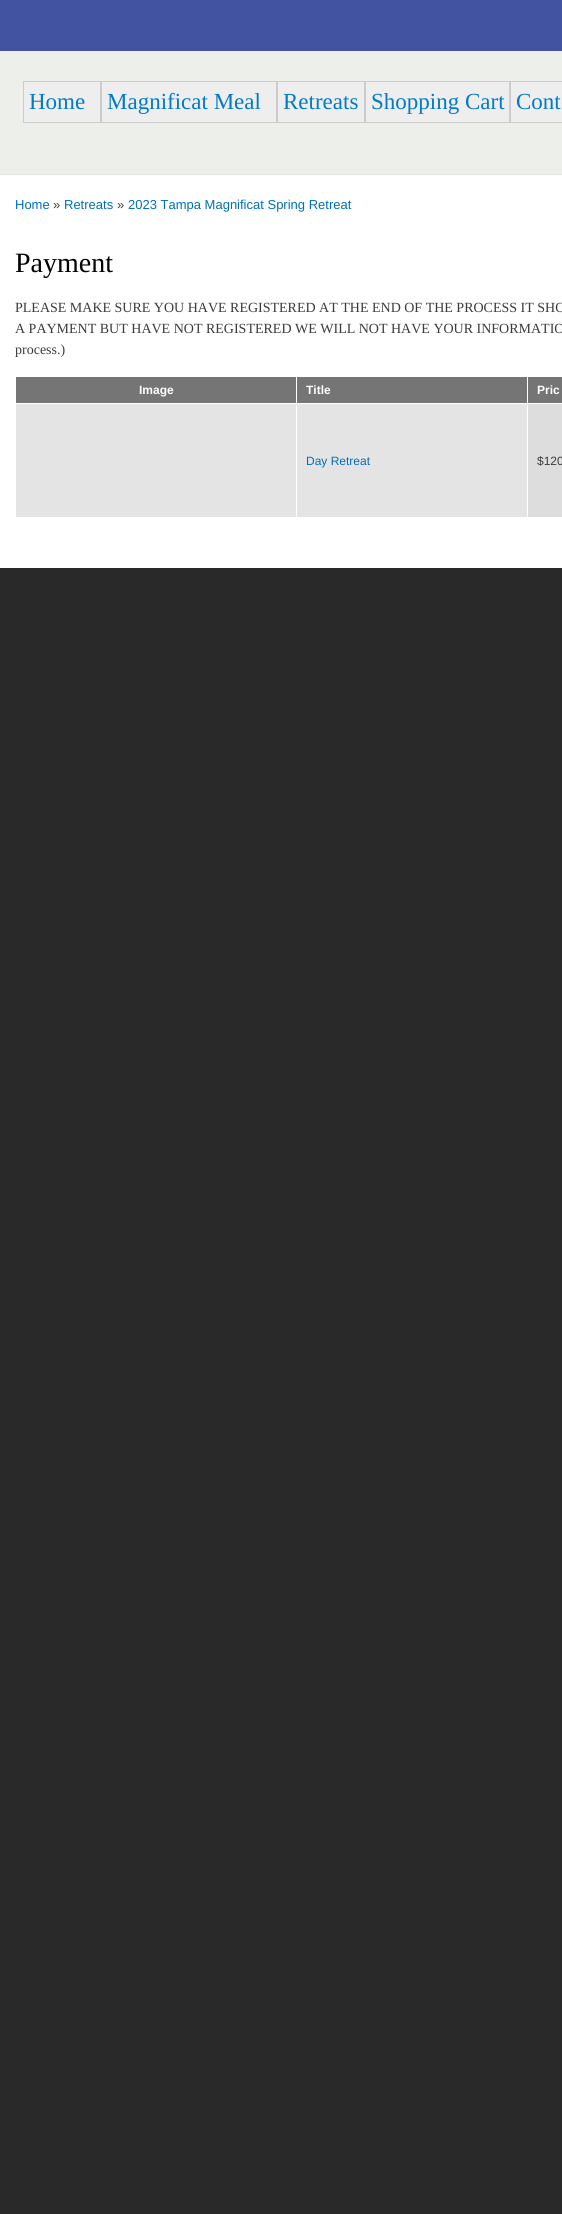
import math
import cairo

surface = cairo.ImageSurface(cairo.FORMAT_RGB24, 562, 2214)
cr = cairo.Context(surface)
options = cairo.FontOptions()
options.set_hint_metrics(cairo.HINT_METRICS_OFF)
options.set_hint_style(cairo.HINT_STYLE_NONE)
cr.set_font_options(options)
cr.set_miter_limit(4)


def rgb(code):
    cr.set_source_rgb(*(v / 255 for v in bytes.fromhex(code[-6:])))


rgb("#292929")
cr.paint()
for x, y, w, h, color in [
    (0, 175, 562, 393, "#ffffff"),
    (0, 0, 562, 51, "#4253a1"),
    (0, 51, 562, 123, "#edefeb"),
    (0, 174, 562, 1, "#e7e7e7"),
]:
    rgb(color)
    cr.rectangle(x, y, w, h)
    cr.fill()
rgb("#eeeeee")
cr.rectangle(23.5, 81.5, 77, 41)
cr.fill_preserve()
rgb("#cccccc")
cr.set_line_width(1)
cr.stroke()
rgb("#eeeeee")
cr.rectangle(101.5, 81.5, 175, 41)
cr.fill_preserve()
rgb("#cccccc")
cr.stroke()
rgb("#eeeeee")
cr.rectangle(277.5, 81.5, 87, 41)
cr.fill_preserve()
rgb("#cccccc")
cr.stroke()
rgb("#eeeeee")
cr.rectangle(365.5, 81.5, 144, 41)
cr.fill_preserve()
rgb("#cccccc")
cr.stroke()
rgb("#eeeeee")
cr.rectangle(510.5, 81.5, 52, 41)
cr.fill_preserve()
rgb("#cccccc")
cr.stroke()
for x, y, w, h, color in [
    (16, 377, 280, 26, "#757575"),
    (297, 377, 230, 26, "#757575"),
    (528, 377, 34, 26, "#757575"),
    (16, 404, 511, 113, "#e4e4e4"),
    (296, 403, 1, 115, "#ffffff"),
    (528, 404, 34, 113, "#dddddd"),
]:
    rgb(color)
    cr.rectangle(x, y, w, h)
    cr.fill()
cr.select_font_face("Liberation Serif")
cr.set_font_size(23)
rgb("#027ac6")
for x, y, s in [
    (29, 109, "Home"),
    (107, 109, "Magnificat Meal"),
    (283, 109, "Retreats"),
    (371, 109, "Shopping Cart"),
    (516, 109, "Cont"),
]:
    cr.move_to(x, y)
    cr.show_text(s)
cr.select_font_face("Liberation Sans")
cr.set_font_size(13)
rgb("#0070b3")
cr.move_to(15, 209)
cr.show_text("Home")
rgb("#3b3b3b")
cr.move_to(53, 209)
cr.show_text("»")
rgb("#0070b3")
cr.move_to(64, 209)
cr.show_text("Retreats")
rgb("#3b3b3b")
cr.move_to(117, 209)
cr.show_text("»")
rgb("#0070b3")
cr.move_to(128, 209)
cr.show_text("2023 Tampa Magnificat Spring Retreat")
cr.select_font_face("Liberation Serif")
cr.set_font_size(28)
rgb("#000000")
cr.move_to(15, 272)
cr.show_text("Payment")
cr.set_font_size(14)
rgb("#3b3b3b")
for x, y, s in [
    (15, 312, "PLEASE MAKE SURE YOU HAVE REGISTERED AT THE END OF THE PROCESS IT SHO"),
    (15, 333, "A PAYMENT BUT HAVE NOT REGISTERED WE WILL NOT HAVE YOUR INFORMATIO"),
    (15, 354, "process.)"),
]:
    cr.move_to(x, y)
    cr.show_text(s)
cr.select_font_face("Liberation Sans", cairo.FONT_SLANT_NORMAL, cairo.FONT_WEIGHT_BOLD)
cr.set_font_size(12)
rgb("#ffffff")
for x, y, s in [
    (139, 394, "Image"),
    (306, 394, "Title"),
    (537, 394, "Pric"),
]:
    cr.move_to(x, y)
    cr.show_text(s)
cr.select_font_face("Liberation Sans")
rgb("#0070b3")
cr.move_to(306, 465)
cr.show_text("Day Retreat")
rgb("#3b3b3b")
cr.move_to(537, 465)
cr.show_text("$120")
surface.write_to_png("page.png")
